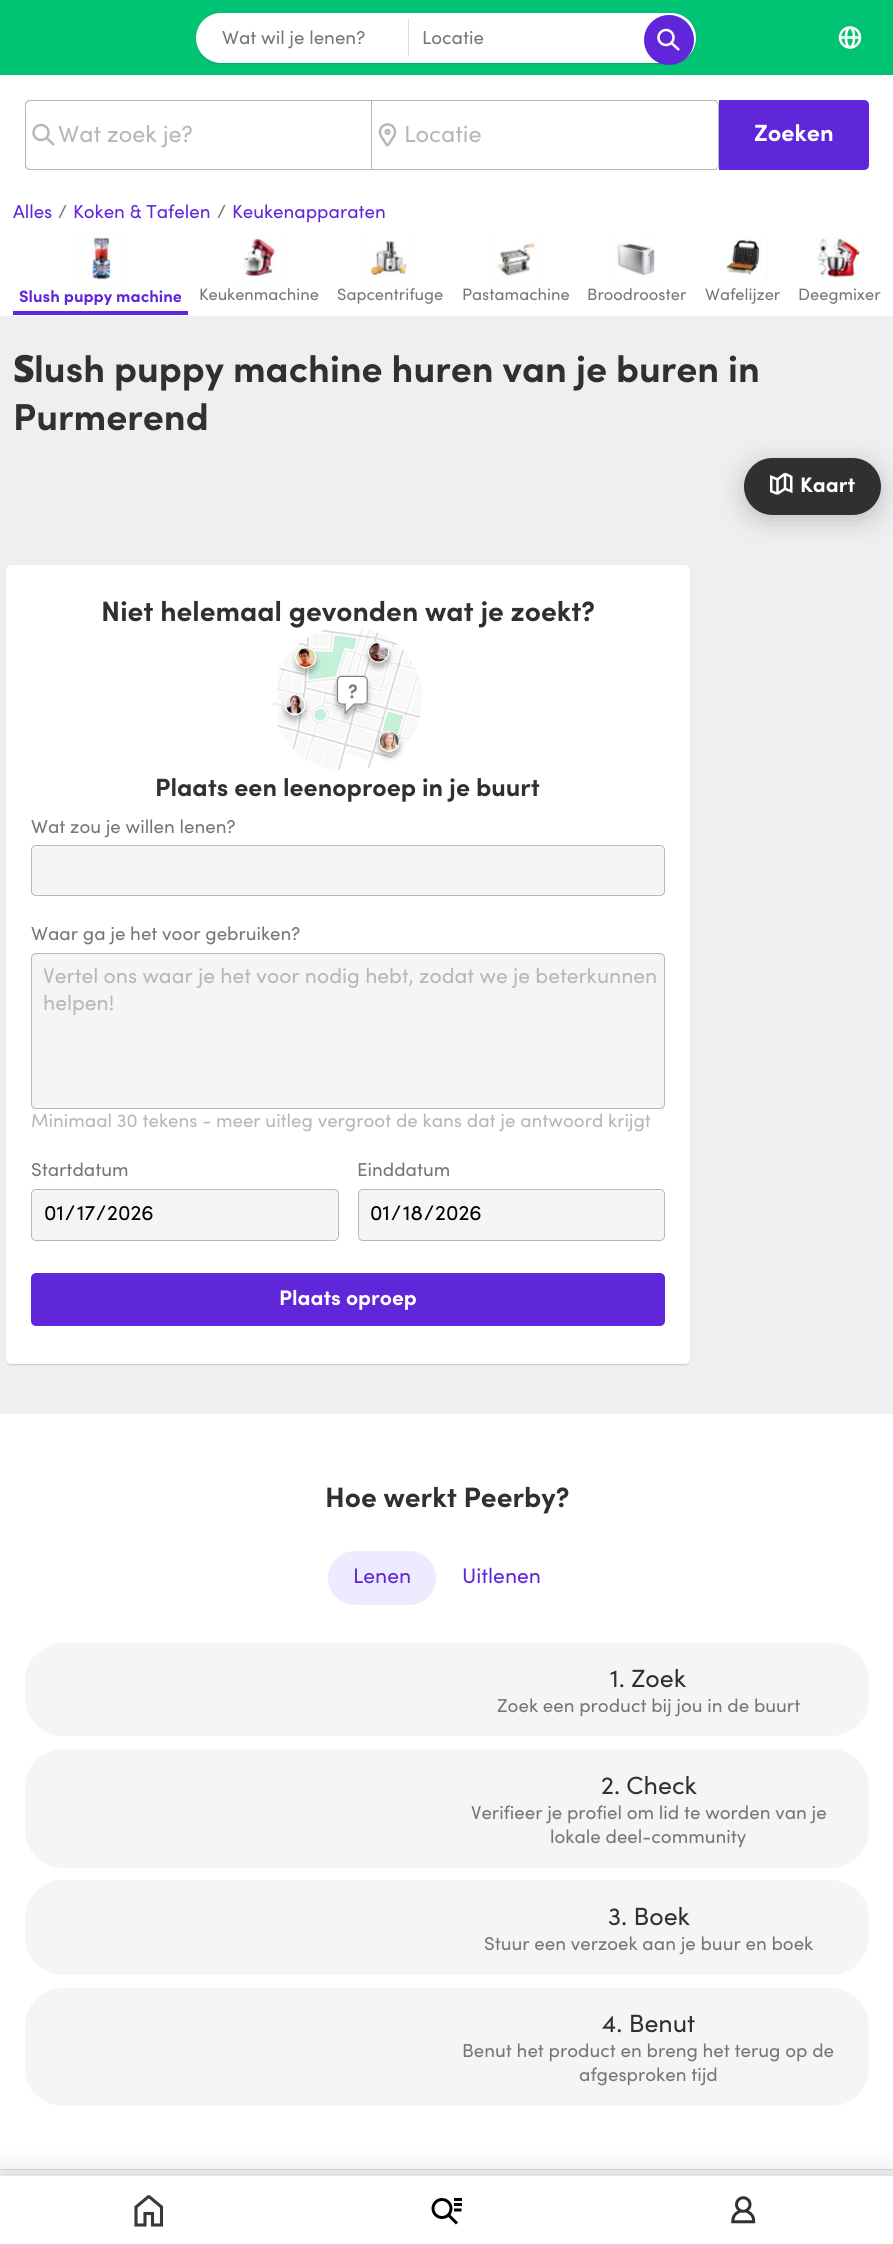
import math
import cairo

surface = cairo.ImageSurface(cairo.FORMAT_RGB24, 893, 2244)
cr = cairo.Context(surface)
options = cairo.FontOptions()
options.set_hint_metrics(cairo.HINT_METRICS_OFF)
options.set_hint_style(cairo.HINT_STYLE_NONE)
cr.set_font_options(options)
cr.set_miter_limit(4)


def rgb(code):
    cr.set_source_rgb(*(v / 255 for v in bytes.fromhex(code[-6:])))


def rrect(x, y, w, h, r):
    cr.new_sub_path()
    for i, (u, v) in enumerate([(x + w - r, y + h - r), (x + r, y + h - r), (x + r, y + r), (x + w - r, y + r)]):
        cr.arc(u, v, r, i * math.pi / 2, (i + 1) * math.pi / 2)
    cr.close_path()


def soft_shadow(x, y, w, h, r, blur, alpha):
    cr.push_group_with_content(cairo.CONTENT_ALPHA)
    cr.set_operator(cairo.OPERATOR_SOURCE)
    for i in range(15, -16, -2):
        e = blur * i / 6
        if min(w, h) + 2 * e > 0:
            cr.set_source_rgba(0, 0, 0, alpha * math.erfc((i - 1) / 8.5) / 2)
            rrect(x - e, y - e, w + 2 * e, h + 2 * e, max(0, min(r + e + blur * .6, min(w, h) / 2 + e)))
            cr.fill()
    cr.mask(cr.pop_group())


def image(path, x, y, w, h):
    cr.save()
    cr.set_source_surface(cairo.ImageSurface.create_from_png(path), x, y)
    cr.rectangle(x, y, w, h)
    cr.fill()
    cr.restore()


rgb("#edeff0")
cr.paint()
rgb("#ffffff")
cr.rectangle(0, 75, 893, 241)
cr.fill()
rgb("#00c473")
cr.rectangle(0, 0, 893, 75)
cr.fill()
rgb("#000000")
soft_shadow(196, 14, 500, 50, 25, 0.5, 0.15)
rgb("#ffffff")
rrect(196, 13, 500, 50, 25)
cr.fill()
rgb("#dbdbdb")
cr.rectangle(408, 19, 1, 37)
cr.fill()
rgb("#6027da")
cr.arc(669, 40, 25, 0, 2 * math.pi)
cr.fill()
cr.arc(666, 37.5, 7.5, 0, 2 * math.pi)
rgb("#ffffff")
cr.set_line_width(2.5)
cr.stroke()
cr.new_path()
cr.move_to(679, 50)
cr.line_to(671, 42.5)
cr.stroke()
cr.arc(850, 37.5, 10, 0, 2 * math.pi)
cr.stroke()
cr.set_source_rgba(1, 1, 1, 0.83)
cr.rectangle(840, 36, 20, 3)
cr.fill()
cr.new_path()
cr.move_to(854, 37.5)
cr.curve_to(854, 50.5, 846, 50.5, 846, 37.5)
cr.curve_to(846, 24.5, 854, 24.5, 854, 37.5)
cr.close_path()
rgb("#ffffff")
cr.stroke()
rgb("#b7b7b7")
cr.set_fill_rule(cairo.FILL_RULE_EVEN_ODD)
cr.new_path()
cr.move_to(30, 100)
cr.line_to(371, 100)
cr.line_to(371, 170)
cr.line_to(30, 170)
cr.curve_to(27, 170, 25, 168, 25, 165)
cr.line_to(25, 105)
cr.curve_to(25, 102, 27, 100, 30, 100)
cr.close_path()
cr.move_to(30, 101)
cr.line_to(371, 101)
cr.line_to(371, 169)
cr.line_to(30, 169)
cr.curve_to(28, 169, 26, 167, 26, 165)
cr.line_to(26, 105)
cr.curve_to(26, 103, 28, 101, 30, 101)
cr.close_path()
cr.fill()
cr.arc(41, 132.5, 7.5, 0, 2 * math.pi)
cr.stroke()
cr.new_path()
cr.move_to(54, 145)
cr.line_to(46, 137.5)
cr.stroke()
cr.new_path()
cr.move_to(371.5, 100.5)
cr.line_to(714, 100.5)
cr.curve_to(716.5, 100.5, 718.5, 102.5, 718.5, 105)
cr.line_to(718.5, 165)
cr.curve_to(718.5, 167.5, 716.5, 169.5, 714, 169.5)
cr.line_to(371.5, 169.5)
cr.close_path()
cr.set_line_width(1)
cr.stroke()
image("img/1.png", 378, 123, 19, 24)
rgb("#6027da")
cr.new_path()
cr.move_to(719, 100)
cr.line_to(864, 100)
cr.curve_to(867, 100, 869, 102, 869, 105)
cr.line_to(869, 165)
cr.curve_to(869, 168, 867, 170, 864, 170)
cr.line_to(719, 170)
cr.close_path()
cr.fill()
cr.rectangle(13, 311, 175, 4)
cr.fill()
rgb("#f3f5f6")
cr.rectangle(75, 234, 50, 50)
cr.fill()
image("img/2.png", 75, 234, 50, 50)
cr.rectangle(234, 233, 50, 50)
cr.fill()
image("img/3.png", 234, 233, 50, 50)
cr.rectangle(365, 233, 50, 50)
cr.fill()
image("img/4.png", 365, 233, 50, 50)
cr.rectangle(490, 233, 50, 50)
cr.fill()
image("img/5.png", 490, 233, 50, 50)
cr.rectangle(611, 233, 50, 50)
cr.fill()
image("img/6.png", 611, 233, 50, 50)
cr.rectangle(718, 233, 50, 50)
cr.fill()
image("img/7.png", 718, 233, 50, 50)
cr.rectangle(814, 233, 50, 50)
cr.fill()
image("img/8.png", 814, 233, 50, 50)
rgb("#000000")
soft_shadow(744, 463, 137, 57, 28.5, 12.5, 0.2)
rgb("#303030")
rrect(744, 458, 137, 57, 28.5)
cr.fill()
image("img/9.png", 770, 472, 23, 23)
rgb("#000000")
soft_shadow(6, 566, 684, 799, 5, 0.5, 0.15)
rgb("#ffffff")
rrect(6, 565, 684, 799, 5)
cr.fill()
image("img/10.png", 273, 628, 149, 142)
rgb("#f3f5f6")
rrect(31.5, 845.5, 633, 50, 4.5)
cr.fill_preserve()
rgb("#b7b7b7")
cr.stroke()
rgb("#f3f5f6")
rrect(31.5, 953.5, 633, 155, 4.5)
cr.fill_preserve()
rgb("#b7b7b7")
cr.stroke()
rgb("#f3f5f6")
rrect(31.5, 1189.5, 307, 51, 4.5)
cr.fill_preserve()
rgb("#b7b7b7")
cr.stroke()
rgb("#f3f5f6")
rrect(358.5, 1189.5, 306, 51, 4.5)
cr.fill_preserve()
rgb("#b7b7b7")
cr.stroke()
rgb("#6027da")
rrect(31, 1273, 634, 53, 5)
cr.fill()
rgb("#ffffff")
cr.rectangle(0, 1414, 893, 755)
cr.fill()
rgb("#edebff")
rrect(328, 1551, 108, 54, 27)
cr.fill()
rgb("#f3f5f6")
rrect(25, 1643, 844, 93, 38)
cr.fill()
rrect(25, 1749, 844, 119, 38)
cr.fill()
rrect(25, 1880, 844, 95, 38)
cr.fill()
rrect(25, 1988, 844, 118, 38)
cr.fill()
cr.rectangle(0, 2170, 893, 6)
cr.fill()
rgb("#dbdbdb")
cr.rectangle(0, 2169, 893, 1)
cr.fill()
rgb("#000000")
soft_shadow(0, 2176, 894, 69, 0, 15.5, 0.15)
rgb("#ffffff")
cr.rectangle(0, 2176, 893, 68)
cr.fill()
cr.new_path()
cr.move_to(136, 2207)
cr.line_to(136, 2225)
cr.line_to(145, 2225)
cr.line_to(145, 2213.5)
cr.line_to(152.5, 2213.5)
cr.line_to(152.5, 2225)
cr.line_to(161.5, 2225)
cr.line_to(161.5, 2207)
cr.line_to(149.5, 2197)
cr.curve_to(149, 2196.5, 148.5, 2196.5, 148, 2197)
cr.close_path()
rgb("#383838")
cr.set_line_width(3.1)
cr.stroke()
cr.arc(442, 2208.5, 9, 0, 2 * math.pi)
rgb("#000000")
cr.set_line_width(3)
cr.stroke()
cr.new_path()
cr.move_to(457, 2223.5)
cr.line_to(448, 2214.5)
cr.stroke()
cr.rectangle(454, 2198, 8, 3)
cr.fill()
cr.rectangle(454, 2203, 8, 3)
cr.fill()
cr.new_path()
cr.move_to(454, 2210)
cr.line_to(461.5, 2210)
cr.stroke()
image("img/11.png", 731, 2196, 25, 28)
cr.select_font_face("Sofia")
cr.set_font_size(18.75)
rgb("#767676")
cr.move_to(222, 44)
cr.show_text("Wat wil je lenen?")
cr.move_to(422, 44)
cr.show_text("Locatie")
cr.set_font_size(23.5)
rgb("#b7b7b7")
cr.move_to(58, 142)
cr.show_text("Wat zoek je?")
cr.move_to(404, 142)
cr.show_text("Locatie")
cr.select_font_face("Sofia", cairo.FONT_SLANT_NORMAL, cairo.FONT_WEIGHT_BOLD)
rgb("#ffffff")
cr.move_to(754, 141)
cr.show_text("Zoeken")
cr.select_font_face("Sofia")
cr.set_font_size(18.75)
rgb("#6027da")
cr.move_to(13, 218)
cr.show_text("Alles")
rgb("#767676")
cr.move_to(58, 218)
cr.show_text("/")
rgb("#6027da")
cr.move_to(73, 218)
cr.show_text("Koken & Tafelen")
rgb("#767676")
cr.move_to(217, 218)
cr.show_text("/")
rgb("#6027da")
cr.move_to(232, 218)
cr.show_text("Keukenapparaten")
cr.save()
cr.set_fill_rule(cairo.FILL_RULE_WINDING)
cr.rectangle(19, 284, 162, 21)
cr.clip()
cr.select_font_face("Sofia", cairo.FONT_SLANT_NORMAL, cairo.FONT_WEIGHT_BOLD)
cr.set_font_size(16.5)
cr.move_to(19, 302)
cr.show_text("Slush puppy machine")
cr.restore()
cr.set_font_size(16.5)
rgb("#767676")
for x, y, s in [
    (199, 300, "Keukenmachine"),
    (337, 300, "Sapcentrifuge"),
    (462, 300, "Pastamachine"),
    (587, 300, "Broodrooster"),
    (705, 300, "Wafelijzer"),
    (798, 300, "Deegmixer"),
]:
    cr.move_to(x, y)
    cr.show_text(s)
cr.select_font_face("Noto Sans Black")
cr.set_font_size(37.5)
rgb("#303030")
cr.move_to(13, 382)
cr.show_text("S")
cr.select_font_face("Sofia", cairo.FONT_SLANT_NORMAL, cairo.FONT_WEIGHT_BOLD)
cr.move_to(34, 382)
cr.show_text("lush puppy machine huren van je buren in")
cr.move_to(13, 430)
cr.show_text("Purmerend")
cr.set_font_size(21.1)
rgb("#ffffff")
cr.move_to(800, 492)
cr.show_text("Kaart")
cr.set_font_size(28.1)
rgb("#303030")
cr.move_to(101, 621)
cr.show_text("Niet helemaal gevonden wat je zoekt?")
cr.set_font_size(25)
cr.move_to(155, 796)
cr.show_text("Plaats een leenoproep in je buurt")
cr.select_font_face("Sofia")
cr.set_font_size(18.75)
rgb("#767676")
cr.move_to(31, 833)
cr.show_text("Wat zou je willen lenen?")
cr.move_to(31, 940)
cr.show_text("Waar ga je het voor gebruiken?")
cr.set_font_size(21.1)
rgb("#b7b7b7")
cr.move_to(43, 983)
cr.show_text("Vertel ons waar je het voor nodig hebt, zodat we je beterkunnen")
cr.move_to(43, 1010)
cr.show_text("helpen!")
cr.set_font_size(18.75)
cr.move_to(31, 1127)
cr.show_text("Minimaal 30 tekens - meer uitleg vergroot de kans dat je antwoord krijgt")
rgb("#767676")
cr.move_to(31, 1176)
cr.show_text("Startdatum")
cr.set_font_size(21.1)
rgb("#000000")
for x, y, s in [
    (44, 1220, "01"),
    (65, 1220, "/"),
    (77, 1220, "17"),
    (96, 1220, "/"),
    (107, 1220, "2026"),
]:
    cr.move_to(x, y)
    cr.show_text(s)
cr.set_font_size(18.75)
rgb("#767676")
cr.move_to(357, 1176)
cr.show_text("Einddatum")
cr.set_font_size(21.1)
rgb("#000000")
for x, y, s in [
    (370, 1220, "01"),
    (391, 1220, "/"),
    (403, 1220, "18"),
    (424, 1220, "/"),
    (435, 1220, "2026"),
]:
    cr.move_to(x, y)
    cr.show_text(s)
cr.select_font_face("Sofia", cairo.FONT_SLANT_NORMAL, cairo.FONT_WEIGHT_BOLD)
rgb("#ffffff")
cr.move_to(279, 1305)
cr.show_text("Plaats oproep")
cr.set_font_size(28.1)
rgb("#303030")
cr.move_to(325, 1507)
cr.show_text("Hoe werkt Peerby?")
cr.select_font_face("Sofia")
cr.set_font_size(21.1)
rgb("#6027da")
cr.move_to(353, 1583)
cr.show_text("Lenen")
cr.move_to(462, 1583)
cr.show_text("Uitlenen")
cr.set_font_size(25)
rgb("#303030")
cr.move_to(610, 1687)
cr.show_text("1. Zoek")
cr.set_font_size(18.75)
rgb("#767676")
cr.move_to(497, 1712)
cr.show_text("Zoek een product bij jou in de buurt")
cr.set_font_size(25)
rgb("#303030")
cr.move_to(601, 1794)
cr.show_text("2. Check")
cr.set_font_size(18.75)
rgb("#767676")
cr.move_to(471, 1819)
cr.show_text("Verifieer je profiel om lid te worden van je")
cr.move_to(550, 1843)
cr.show_text("lokale deel-community")
cr.set_font_size(25)
rgb("#303030")
cr.move_to(608, 1925)
cr.show_text("3. Boek")
cr.set_font_size(18.75)
rgb("#767676")
cr.move_to(484, 1950)
cr.show_text("Stuur een verzoek aan je buur en boek")
cr.set_font_size(25)
rgb("#303030")
cr.move_to(602, 2032)
cr.show_text("4. Benut")
cr.set_font_size(18.75)
rgb("#767676")
cr.move_to(462, 2057)
cr.show_text("Benut het product en breng het terug op de")
cr.move_to(579, 2081)
cr.show_text("afgesproken tijd")
surface.write_to_png("page.png")
